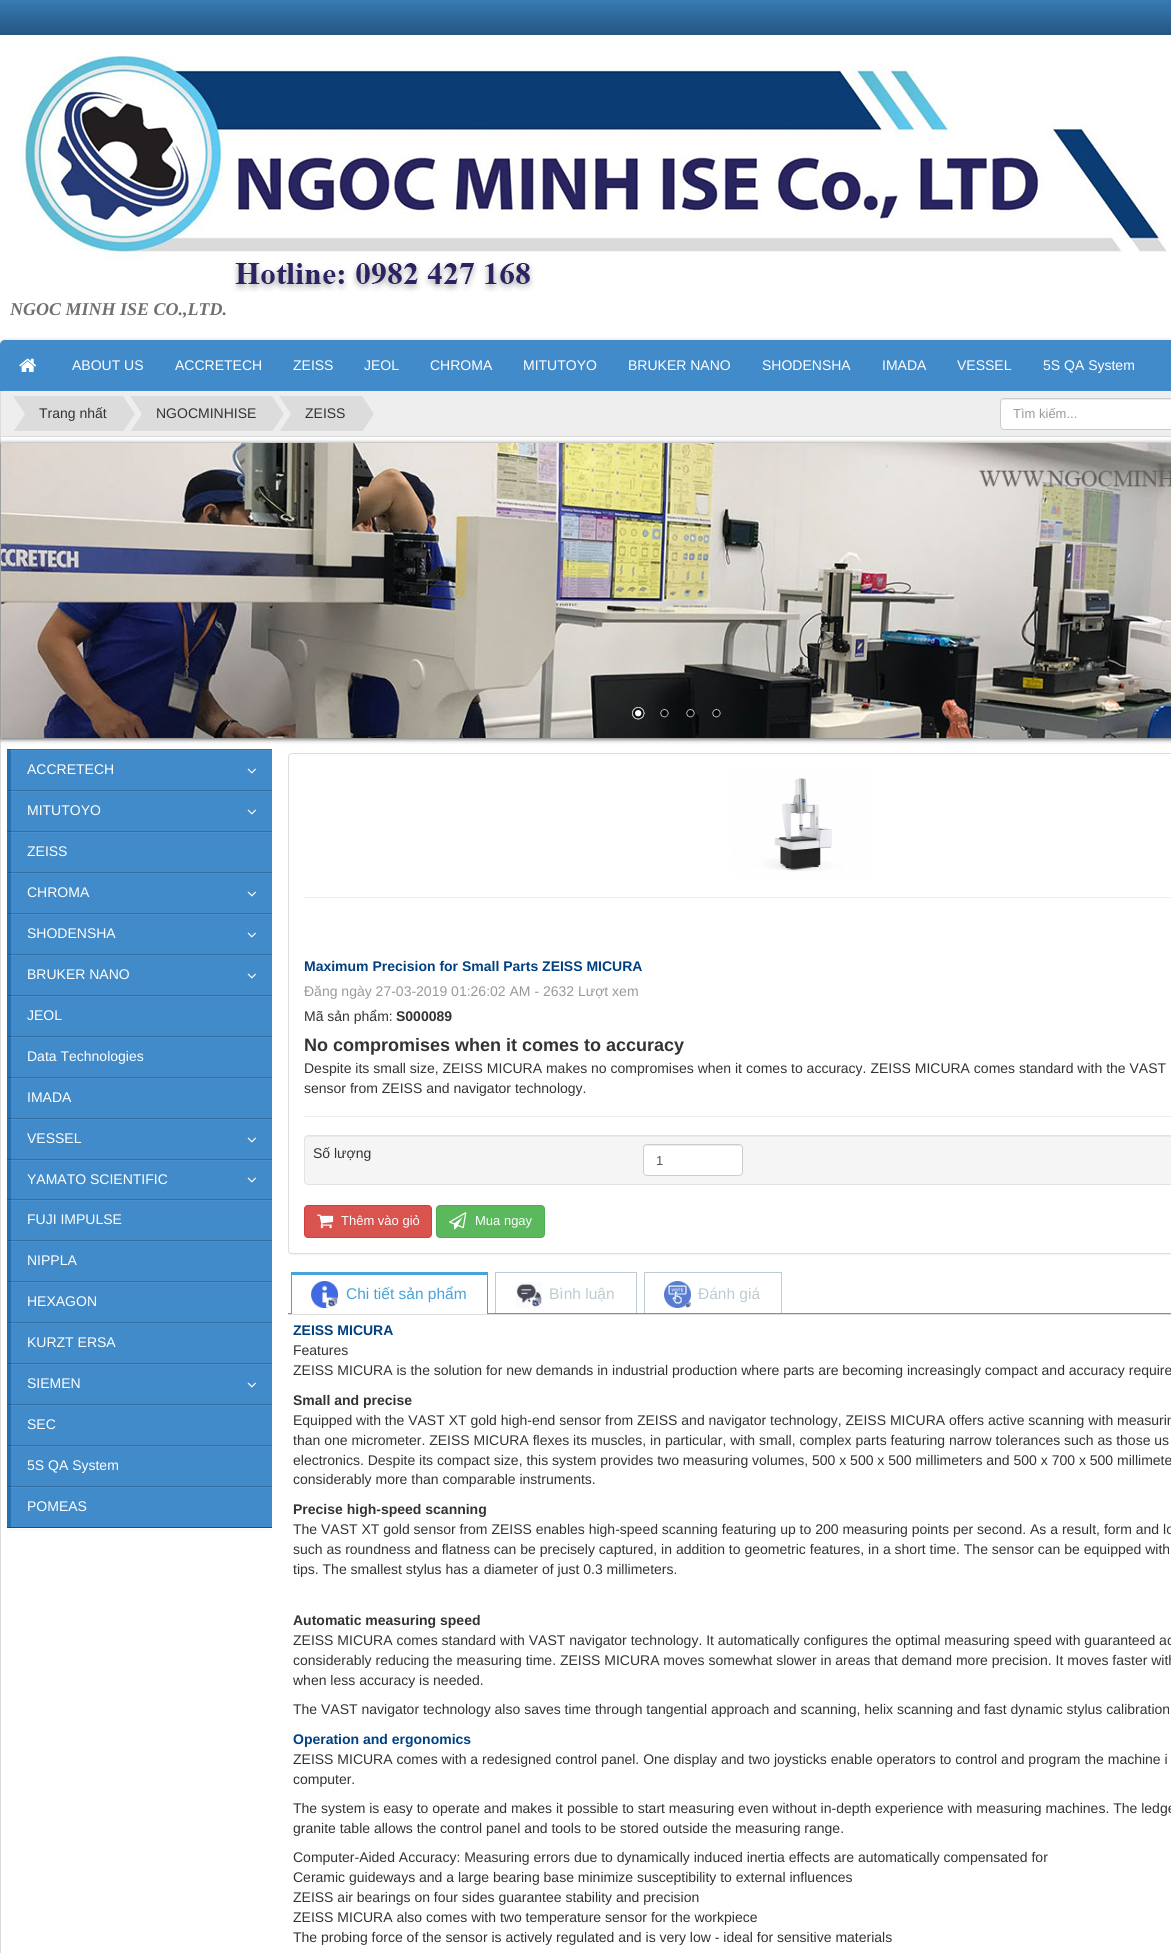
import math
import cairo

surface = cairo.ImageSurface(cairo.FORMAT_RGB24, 1171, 1953)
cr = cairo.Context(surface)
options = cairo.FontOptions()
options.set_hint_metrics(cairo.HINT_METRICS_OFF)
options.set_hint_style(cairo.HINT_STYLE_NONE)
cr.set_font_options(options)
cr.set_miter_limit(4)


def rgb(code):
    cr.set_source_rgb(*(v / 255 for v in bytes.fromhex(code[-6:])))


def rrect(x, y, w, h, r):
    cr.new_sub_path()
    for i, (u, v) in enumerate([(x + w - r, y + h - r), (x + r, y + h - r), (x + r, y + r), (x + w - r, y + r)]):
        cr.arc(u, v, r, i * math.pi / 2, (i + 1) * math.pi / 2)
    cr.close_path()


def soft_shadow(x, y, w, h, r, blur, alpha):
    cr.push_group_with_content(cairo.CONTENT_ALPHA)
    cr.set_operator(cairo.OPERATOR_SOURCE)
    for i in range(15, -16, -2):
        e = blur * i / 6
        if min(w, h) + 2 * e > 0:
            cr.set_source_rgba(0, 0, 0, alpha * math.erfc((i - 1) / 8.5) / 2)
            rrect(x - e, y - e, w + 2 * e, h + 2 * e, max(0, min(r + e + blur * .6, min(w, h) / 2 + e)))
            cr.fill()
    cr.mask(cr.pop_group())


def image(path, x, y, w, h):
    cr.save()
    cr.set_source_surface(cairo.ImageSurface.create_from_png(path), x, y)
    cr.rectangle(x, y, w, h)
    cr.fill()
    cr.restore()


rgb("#ffffff")
cr.paint()
image("img/1.png", 0, 0, 1171, 35)
image("img/2.png", 20, 55, 1147, 237)
rgb("#000000")
soft_shadow(0, 340, 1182, 51, 5, 2, 0.15)
rgb("#428bca")
cr.new_path()
cr.move_to(5, 340)
cr.line_to(1171, 340)
cr.curve_to(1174, 340, 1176, 342, 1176, 345)
cr.line_to(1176, 390)
cr.line_to(0, 390)
cr.line_to(0, 345)
cr.curve_to(0, 342, 2, 340, 5, 340)
cr.close_path()
cr.fill()
cr.rectangle(0, 390, 1171, 1)
cr.fill()
image("img/3.png", 19, 358, 17, 14)
for x, y, w, h, color in [
    (0, 391, 1, 1562, "#dcdcdc"),
    (1, 436, 1170, 1, "#dcdcdc"),
    (1, 391, 1170, 45, "#eeeeee"),
    (25, 396, 96, 35, "#dcdcdc"),
]:
    rgb(color)
    cr.rectangle(x, y, w, h)
    cr.fill()
cr.save()
cr.rectangle(11, 396, 979, 35)
cr.clip()
cr.new_path()
cr.move_to(11, 393)
cr.line_to(25, 393)
cr.line_to(25, 414)
cr.close_path()
cr.move_to(25, 435)
cr.line_to(11, 435)
cr.line_to(25, 414)
cr.close_path()
cr.fill()
cr.new_path()
cr.move_to(121, 435)
cr.line_to(121, 393)
cr.line_to(135, 414)
cr.close_path()
cr.fill()
cr.restore()
cr.rectangle(142, 396, 128, 35)
cr.fill()
cr.save()
cr.rectangle(11, 396, 979, 35)
cr.clip()
cr.new_path()
cr.move_to(128, 393)
cr.line_to(142, 393)
cr.line_to(142, 414)
cr.close_path()
cr.move_to(142, 435)
cr.line_to(128, 435)
cr.line_to(142, 414)
cr.close_path()
cr.fill()
cr.new_path()
cr.move_to(270, 435)
cr.line_to(270, 393)
cr.line_to(284, 414)
cr.close_path()
cr.fill()
cr.restore()
cr.rectangle(291, 396, 69, 35)
cr.fill()
cr.save()
cr.rectangle(11, 396, 979, 35)
cr.clip()
cr.new_path()
cr.move_to(277, 393)
cr.line_to(291, 393)
cr.line_to(291, 414)
cr.close_path()
cr.move_to(291, 435)
cr.line_to(277, 435)
cr.line_to(291, 414)
cr.close_path()
cr.fill()
cr.new_path()
cr.move_to(360, 435)
cr.line_to(360, 393)
cr.line_to(374, 414)
cr.close_path()
cr.fill()
cr.restore()
rgb("#ffffff")
cr.new_path()
cr.move_to(1004, 398)
cr.line_to(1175, 398)
cr.line_to(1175, 430)
cr.line_to(1004, 430)
cr.curve_to(1002, 430, 1000, 428, 1000, 426)
cr.line_to(1000, 402)
cr.curve_to(1000, 400, 1002, 398, 1004, 398)
cr.close_path()
cr.fill()
rgb("#ececec")
cr.new_path()
cr.move_to(1004, 400)
cr.line_to(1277, 400)
cr.line_to(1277, 399)
cr.line_to(1004, 399)
cr.curve_to(1002, 399, 1001, 400, 1001, 402)
cr.line_to(1001, 403)
cr.curve_to(1001, 401, 1002, 400, 1004, 400)
cr.close_path()
cr.fill()
cr.new_path()
cr.move_to(1004, 398.5)
cr.line_to(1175.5, 398.5)
cr.line_to(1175.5, 429.5)
cr.line_to(1004, 429.5)
cr.curve_to(1002, 429.5, 1000.5, 428, 1000.5, 426)
cr.line_to(1000.5, 402)
cr.curve_to(1000.5, 400, 1002, 398.5, 1004, 398.5)
cr.close_path()
rgb("#cccccc")
cr.set_line_width(1)
cr.stroke()
rgb("#4a4a4a")
soft_shadow(1, 444, 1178, 295, 0, 2.5, 1)
image("img/4.png", 1, 443, 1170, 295)
image("img/5.png", 632, 707, 13, 13)
image("img/6.png", 660, 709, 9, 9)
image("img/7.png", 686, 709, 9, 9)
image("img/8.png", 712, 709, 9, 9)
rgb("#000000")
soft_shadow(6, 749, 267, 781, 4, 0.5, 0.05)
rgb("#ffffff")
rrect(6, 748, 267, 781, 4)
cr.fill()
rgb("#2671b5")
cr.rectangle(7, 749, 4, 778)
cr.fill()
rgb("#1e5a91")
cr.rectangle(7, 1486, 4, 1)
cr.fill()
rgb("#3178b9")
cr.rectangle(7, 1487, 4, 1)
cr.fill()
rgb("#1e5a91")
cr.rectangle(7, 1445, 4, 1)
cr.fill()
rgb("#3178b9")
cr.rectangle(7, 1446, 4, 1)
cr.fill()
rgb("#1e5a91")
cr.rectangle(7, 1404, 4, 1)
cr.fill()
rgb("#3178b9")
cr.rectangle(7, 1405, 4, 1)
cr.fill()
rgb("#1e5a91")
cr.rectangle(7, 1363, 4, 1)
cr.fill()
rgb("#3178b9")
cr.rectangle(7, 1364, 4, 1)
cr.fill()
rgb("#1e5a91")
cr.rectangle(7, 1322, 4, 1)
cr.fill()
rgb("#3178b9")
cr.rectangle(7, 1323, 4, 1)
cr.fill()
rgb("#1e5a91")
cr.rectangle(7, 1281, 4, 1)
cr.fill()
rgb("#3178b9")
cr.rectangle(7, 1282, 4, 1)
cr.fill()
rgb("#1e5a91")
cr.rectangle(7, 1240, 4, 1)
cr.fill()
rgb("#3178b9")
cr.rectangle(7, 1241, 4, 1)
cr.fill()
rgb("#1e5a91")
cr.rectangle(7, 1199, 4, 1)
cr.fill()
rgb("#3178b9")
cr.rectangle(7, 1200, 4, 1)
cr.fill()
rgb("#1e5a91")
cr.rectangle(7, 1159, 4, 1)
cr.fill()
rgb("#3178b9")
cr.rectangle(7, 1160, 4, 1)
cr.fill()
rgb("#1e5a91")
cr.rectangle(7, 1118, 4, 1)
cr.fill()
rgb("#3178b9")
cr.rectangle(7, 1119, 4, 1)
cr.fill()
rgb("#1e5a91")
cr.rectangle(7, 1077, 4, 1)
cr.fill()
rgb("#3178b9")
cr.rectangle(7, 1078, 4, 1)
cr.fill()
rgb("#1e5a91")
cr.rectangle(7, 1036, 4, 1)
cr.fill()
rgb("#3178b9")
cr.rectangle(7, 1037, 4, 1)
cr.fill()
rgb("#1e5a91")
cr.rectangle(7, 995, 4, 1)
cr.fill()
rgb("#3178b9")
cr.rectangle(7, 996, 4, 1)
cr.fill()
rgb("#1e5a91")
cr.rectangle(7, 954, 4, 1)
cr.fill()
rgb("#3178b9")
cr.rectangle(7, 955, 4, 1)
cr.fill()
rgb("#1e5a91")
cr.rectangle(7, 913, 4, 1)
cr.fill()
rgb("#3178b9")
cr.rectangle(7, 914, 4, 1)
cr.fill()
rgb("#1e5a91")
cr.rectangle(7, 872, 4, 1)
cr.fill()
rgb("#3178b9")
cr.rectangle(7, 873, 4, 1)
cr.fill()
rgb("#1e5a91")
cr.rectangle(7, 831, 4, 1)
cr.fill()
rgb("#3178b9")
cr.rectangle(7, 832, 4, 1)
cr.fill()
rgb("#1e5a91")
cr.rectangle(7, 790, 4, 1)
cr.fill()
rgb("#3178b9")
cr.rectangle(7, 791, 4, 1)
cr.rectangle(7, 750, 4, 1)
cr.fill()
rgb("#428bca")
cr.rectangle(11, 749, 261, 778)
cr.fill()
rgb("#356fa2")
cr.rectangle(11, 1486, 261, 1)
cr.fill()
rgb("#4b91cd")
cr.rectangle(11, 1487, 261, 1)
cr.fill()
rgb("#356fa2")
cr.rectangle(11, 1445, 261, 1)
cr.fill()
rgb("#4b91cd")
cr.rectangle(11, 1446, 261, 1)
cr.fill()
rgb("#356fa2")
cr.rectangle(11, 1404, 261, 1)
cr.fill()
rgb("#4b91cd")
cr.rectangle(11, 1405, 261, 1)
cr.fill()
rgb("#356fa2")
cr.rectangle(11, 1363, 261, 1)
cr.fill()
rgb("#4b91cd")
cr.rectangle(11, 1364, 261, 1)
cr.fill()
rgb("#356fa2")
cr.rectangle(11, 1322, 261, 1)
cr.fill()
rgb("#4b91cd")
cr.rectangle(11, 1323, 261, 1)
cr.fill()
rgb("#356fa2")
cr.rectangle(11, 1281, 261, 1)
cr.fill()
rgb("#4b91cd")
cr.rectangle(11, 1282, 261, 1)
cr.fill()
rgb("#356fa2")
cr.rectangle(11, 1240, 261, 1)
cr.fill()
rgb("#4b91cd")
cr.rectangle(11, 1241, 261, 1)
cr.fill()
rgb("#356fa2")
cr.rectangle(11, 1199, 261, 1)
cr.fill()
rgb("#4b91cd")
cr.rectangle(11, 1200, 261, 1)
cr.fill()
rgb("#356fa2")
cr.rectangle(11, 1159, 261, 1)
cr.fill()
rgb("#4b91cd")
cr.rectangle(11, 1160, 261, 1)
cr.fill()
rgb("#356fa2")
cr.rectangle(11, 1118, 261, 1)
cr.fill()
rgb("#4b91cd")
cr.rectangle(11, 1119, 261, 1)
cr.fill()
rgb("#356fa2")
cr.rectangle(11, 1077, 261, 1)
cr.fill()
rgb("#4b91cd")
cr.rectangle(11, 1078, 261, 1)
cr.fill()
rgb("#356fa2")
cr.rectangle(11, 1036, 261, 1)
cr.fill()
rgb("#4b91cd")
cr.rectangle(11, 1037, 261, 1)
cr.fill()
rgb("#356fa2")
cr.rectangle(11, 995, 261, 1)
cr.fill()
rgb("#4b91cd")
cr.rectangle(11, 996, 261, 1)
cr.fill()
rgb("#356fa2")
cr.rectangle(11, 954, 261, 1)
cr.fill()
rgb("#4b91cd")
cr.rectangle(11, 955, 261, 1)
cr.fill()
rgb("#356fa2")
cr.rectangle(11, 913, 261, 1)
cr.fill()
rgb("#4b91cd")
cr.rectangle(11, 914, 261, 1)
cr.fill()
rgb("#356fa2")
cr.rectangle(11, 872, 261, 1)
cr.fill()
rgb("#4b91cd")
cr.rectangle(11, 873, 261, 1)
cr.fill()
rgb("#356fa2")
cr.rectangle(11, 831, 261, 1)
cr.fill()
rgb("#4b91cd")
cr.rectangle(11, 832, 261, 1)
cr.fill()
rgb("#356fa2")
cr.rectangle(11, 790, 261, 1)
cr.fill()
rgb("#4b91cd")
cr.rectangle(11, 791, 261, 1)
cr.rectangle(11, 750, 261, 1)
cr.fill()
rgb("#1a4c80")
cr.rectangle(7, 1527, 265, 1)
cr.fill()
cr.set_source_rgba(0, 0, 0, 0.2)
cr.rectangle(7, 749, 265, 1)
cr.fill()
image("img/9.png", 247, 768, 9, 6)
image("img/9.png", 247, 809, 9, 6)
image("img/9.png", 247, 891, 9, 6)
image("img/9.png", 247, 932, 9, 6)
image("img/9.png", 247, 973, 9, 6)
image("img/9.png", 247, 1137, 9, 6)
image("img/9.png", 247, 1177, 9, 6)
image("img/9.png", 247, 1382, 9, 6)
rgb("#000000")
soft_shadow(288, 754, 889, 501, 4, 0.5, 0.05)
rgb("#ffffff")
rrect(288.5, 753.5, 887, 500, 3.5)
cr.fill_preserve()
rgb("#dddddd")
cr.stroke()
image("img/10.png", 731, 769, 140, 110)
rgb("#eeeeee")
cr.rectangle(304, 897, 867, 1)
cr.fill()
cr.rectangle(304, 1116, 867, 1)
cr.fill()
rgb("#f5f5f5")
rrect(304, 1135, 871, 50, 4)
cr.fill()
rgb("#e9e9e9")
cr.new_path()
cr.move_to(308, 1137)
cr.line_to(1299, 1137)
cr.curve_to(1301, 1137, 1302, 1138, 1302, 1140)
cr.curve_to(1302, 1138, 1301, 1136, 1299, 1136)
cr.line_to(308, 1136)
cr.curve_to(306, 1136, 305, 1138, 305, 1140)
cr.curve_to(305, 1138, 306, 1137, 308, 1137)
cr.close_path()
cr.fill()
rrect(304.5, 1135.5, 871, 49, 3.5)
rgb("#e3e3e3")
cr.stroke()
rgb("#ffffff")
rrect(643, 1144, 100, 32, 4)
cr.fill()
rgb("#ececec")
cr.new_path()
cr.move_to(647, 1146)
cr.line_to(739, 1146)
cr.curve_to(741, 1146, 742, 1147, 742, 1149)
cr.curve_to(742, 1141, 727, 1145, 724, 1145)
cr.line_to(662, 1145)
cr.curve_to(659, 1145, 644, 1141, 644, 1149)
cr.curve_to(644, 1147, 645, 1146, 647, 1146)
cr.close_path()
cr.fill()
rrect(643.5, 1144.5, 99, 31, 3.5)
rgb("#cccccc")
cr.stroke()
rgb("#d9534f")
rrect(304.5, 1205.5, 127, 32, 3.5)
cr.fill_preserve()
rgb("#d43f3a")
cr.stroke()
image("img/11.png", 317, 1214, 17, 15)
rgb("#5cb85c")
rrect(436.5, 1205.5, 108, 32, 3.5)
cr.fill_preserve()
rgb("#4cae4c")
cr.stroke()
image("img/12.png", 449, 1212, 18, 18)
for x, y, w, h, color in [
    (288, 1314, 883, 1, "#dddddd"),
    (292, 1273, 195, 2, "#47a3da"),
    (291, 1272, 197, 1, "#47a3da"),
    (487, 1272, 1, 42, "#47a3da"),
    (291, 1272, 1, 42, "#47a3da"),
]:
    rgb(color)
    cr.rectangle(x, y, w, h)
    cr.fill()
image("img/13.png", 311, 1281, 27, 27)
for x, y, w, h, color in [
    (288, 1313, 4, 1, "#47a3da"),
    (495, 1272, 142, 1, "#becbd2"),
    (636, 1272, 1, 42, "#becbd2"),
    (495, 1272, 1, 42, "#becbd2"),
    (644, 1272, 138, 1, "#becbd2"),
    (781, 1272, 1, 42, "#becbd2"),
    (644, 1272, 1, 42, "#becbd2"),
    (487, 1313, 684, 1, "#47a3da"),
]:
    rgb(color)
    cr.rectangle(x, y, w, h)
    cr.fill()
image("img/14.png", 516, 1282, 26, 26)
image("img/15.png", 664, 1281, 27, 27)
cr.select_font_face("Liberation Serif", cairo.FONT_SLANT_ITALIC, cairo.FONT_WEIGHT_BOLD)
cr.set_font_size(18)
rgb("#707070")
cr.move_to(10, 315)
cr.show_text("NGOC MINH ISE CO.,LTD.")
cr.select_font_face("Liberation Sans")
cr.set_font_size(14)
rgb("#ffffff")
for x, y, s in [
    (72, 370, "ABOUT US"),
    (175, 370, "ACCRETECH"),
    (293, 370, "ZEISS"),
    (364, 370, "JEOL"),
    (430, 370, "CHROMA"),
    (523, 370, "MITUTOYO"),
    (628, 370, "BRUKER NANO"),
    (762, 370, "SHODENSHA"),
    (882, 370, "IMADA"),
    (957, 370, "VESSEL"),
    (1043, 370, "5S QA System"),
]:
    cr.move_to(x, y)
    cr.show_text(s)
rgb("#333333")
for x, y, s in [
    (39, 418, "Trang nhất"),
    (156, 418, "NGOCMINHISE"),
    (305, 418, "ZEISS"),
]:
    cr.move_to(x, y)
    cr.show_text(s)
cr.set_font_size(13)
rgb("#999999")
cr.move_to(1013, 418)
cr.show_text("Tìm kiếm...")
cr.set_font_size(14)
rgb("#ffffff")
for x, y, s in [
    (27, 774, "ACCRETECH"),
    (27, 815, "MITUTOYO"),
    (27, 856, "ZEISS"),
    (27, 897, "CHROMA"),
    (27, 938, "SHODENSHA"),
    (27, 979, "BRUKER NANO"),
    (27, 1020, "JEOL"),
    (27, 1061, "Data Technologies"),
    (27, 1102, "IMADA"),
    (27, 1143, "VESSEL"),
    (27, 1184, "YAMATO SCIENTIFIC"),
    (27, 1224, "FUJI IMPULSE"),
    (27, 1265, "NIPPLA"),
    (27, 1306, "HEXAGON"),
    (27, 1347, "KURZT ERSA"),
    (27, 1388, "SIEMEN"),
    (27, 1429, "SEC"),
    (27, 1470, "5S QA System"),
    (27, 1511, "POMEAS"),
]:
    cr.move_to(x, y)
    cr.show_text(s)
cr.select_font_face("Liberation Sans", cairo.FONT_SLANT_NORMAL, cairo.FONT_WEIGHT_BOLD)
rgb("#004080")
cr.move_to(304, 971)
cr.show_text("Maximum Precision for Small Parts ZEISS MICURA")
cr.select_font_face("Liberation Sans")
rgb("#999999")
cr.move_to(304, 996)
cr.show_text("Đăng ngày 27-03-2019 01:26:02 AM - 2632 Lượt xem")
rgb("#333333")
cr.move_to(304, 1021)
cr.show_text("Mã sản phẩm:")
cr.select_font_face("Liberation Sans", cairo.FONT_SLANT_NORMAL, cairo.FONT_WEIGHT_BOLD)
cr.move_to(396, 1021)
cr.show_text("S000089")
cr.set_font_size(18)
cr.move_to(304, 1051)
cr.show_text("No compromises when it comes to accuracy")
cr.select_font_face("Liberation Sans")
cr.set_font_size(14)
for x, y, s in [
    (304, 1073, "Despite its small size, ZEISS MICURA makes no compromises when it comes to accuracy. ZEISS MICURA comes standard with the VAST"),
    (304, 1093, "sensor from ZEISS and navigator technology."),
    (313, 1158, "Số lượng"),
]:
    cr.move_to(x, y)
    cr.show_text(s)
cr.set_font_size(13)
rgb("#555555")
cr.move_to(656, 1165)
cr.show_text("1")
rgb("#ffffff")
cr.move_to(341, 1225)
cr.show_text("Thêm vào giỏ")
cr.move_to(475, 1225)
cr.show_text("Mua ngay")
cr.set_font_size(15.5)
rgb("#47a3da")
cr.move_to(346, 1299)
cr.show_text("Chi tiết sản phẩm")
rgb("#becbd2")
cr.move_to(549, 1299)
cr.show_text("Bình luận")
cr.move_to(698, 1299)
cr.show_text("Đánh giá")
cr.select_font_face("Liberation Sans", cairo.FONT_SLANT_NORMAL, cairo.FONT_WEIGHT_BOLD)
cr.set_font_size(14)
rgb("#004080")
cr.move_to(293, 1335)
cr.show_text("ZEISS MICURA")
cr.select_font_face("Liberation Sans")
rgb("#333333")
cr.move_to(293, 1355)
cr.show_text("Features")
cr.move_to(293, 1375)
cr.show_text("ZEISS MICURA is the solution for new demands in industrial production where parts are becoming increasingly compact and accuracy require")
cr.select_font_face("Liberation Sans", cairo.FONT_SLANT_NORMAL, cairo.FONT_WEIGHT_BOLD)
cr.move_to(293, 1405)
cr.show_text("Small and precise")
cr.select_font_face("Liberation Sans")
for x, y, s in [
    (293, 1425, "Equipped with the VAST XT gold high-end sensor from ZEISS and navigator technology, ZEISS MICURA offers active scanning with measurin"),
    (293, 1445, "than one micrometer. ZEISS MICURA flexes its muscles, in particular, with small, complex parts featuring narrow tolerances such as those us"),
    (293, 1465, "electronics. Despite its compact size, this system provides two measuring volumes, 500 x 500 x 500 millimeters and 500 x 700 x 500 millimete"),
    (293, 1484, "considerably more than comparable instruments."),
]:
    cr.move_to(x, y)
    cr.show_text(s)
cr.select_font_face("Liberation Sans", cairo.FONT_SLANT_NORMAL, cairo.FONT_WEIGHT_BOLD)
cr.move_to(293, 1514)
cr.show_text("Precise high-speed scanning")
cr.select_font_face("Liberation Sans")
for x, y, s in [
    (293, 1534, "The VAST XT gold sensor from ZEISS enables high-speed scanning featuring up to 200 measuring points per second. As a result, form and lo"),
    (293, 1554, "such as roundness and flatness can be precisely captured, in addition to geometric features, in a short time. The sensor can be equipped with"),
    (293, 1574, "tips. The smallest stylus has a diameter of just 0.3 millimeters."),
]:
    cr.move_to(x, y)
    cr.show_text(s)
cr.select_font_face("Liberation Sans", cairo.FONT_SLANT_NORMAL, cairo.FONT_WEIGHT_BOLD)
cr.move_to(293, 1625)
cr.show_text("Automatic measuring speed")
cr.select_font_face("Liberation Sans")
for x, y, s in [
    (293, 1645, "ZEISS MICURA comes standard with VAST navigator technology. It automatically configures the optimal measuring speed with guaranteed ac"),
    (293, 1665, "considerably reducing the measuring time. ZEISS MICURA moves somewhat slower in areas that demand more precision. It moves faster with"),
    (293, 1685, "when less accuracy is needed."),
    (293, 1714, "The VAST navigator technology also saves time through tangential approach and scanning, helix scanning and fast dynamic stylus calibration"),
]:
    cr.move_to(x, y)
    cr.show_text(s)
cr.select_font_face("Liberation Sans", cairo.FONT_SLANT_NORMAL, cairo.FONT_WEIGHT_BOLD)
rgb("#004080")
cr.move_to(293, 1744)
cr.show_text("Operation and ergonomics")
cr.select_font_face("Liberation Sans")
rgb("#333333")
for x, y, s in [
    (293, 1764, "ZEISS MICURA comes with a redesigned control panel. One display and two joysticks enable operators to control and program the machine i"),
    (293, 1784, "computer."),
    (293, 1813, "The system is easy to operate and makes it possible to start measuring even without in-depth experience with measuring machines. The ledge"),
    (293, 1833, "granite table allows the control panel and tools to be stored outside the measuring range."),
    (293, 1862, "Computer-Aided Accuracy: Measuring errors due to dynamically induced inertia effects are automatically compensated for"),
    (293, 1882, "Ceramic guideways and a large bearing base minimize susceptibility to external influences"),
    (293, 1902, "ZEISS air bearings on four sides guarantee stability and precision"),
    (293, 1922, "ZEISS MICURA also comes with two temperature sensor for the workpiece"),
    (293, 1942, "The probing force of the sensor is actively regulated and is very low - ideal for sensitive materials"),
]:
    cr.move_to(x, y)
    cr.show_text(s)
surface.write_to_png("page.png")
